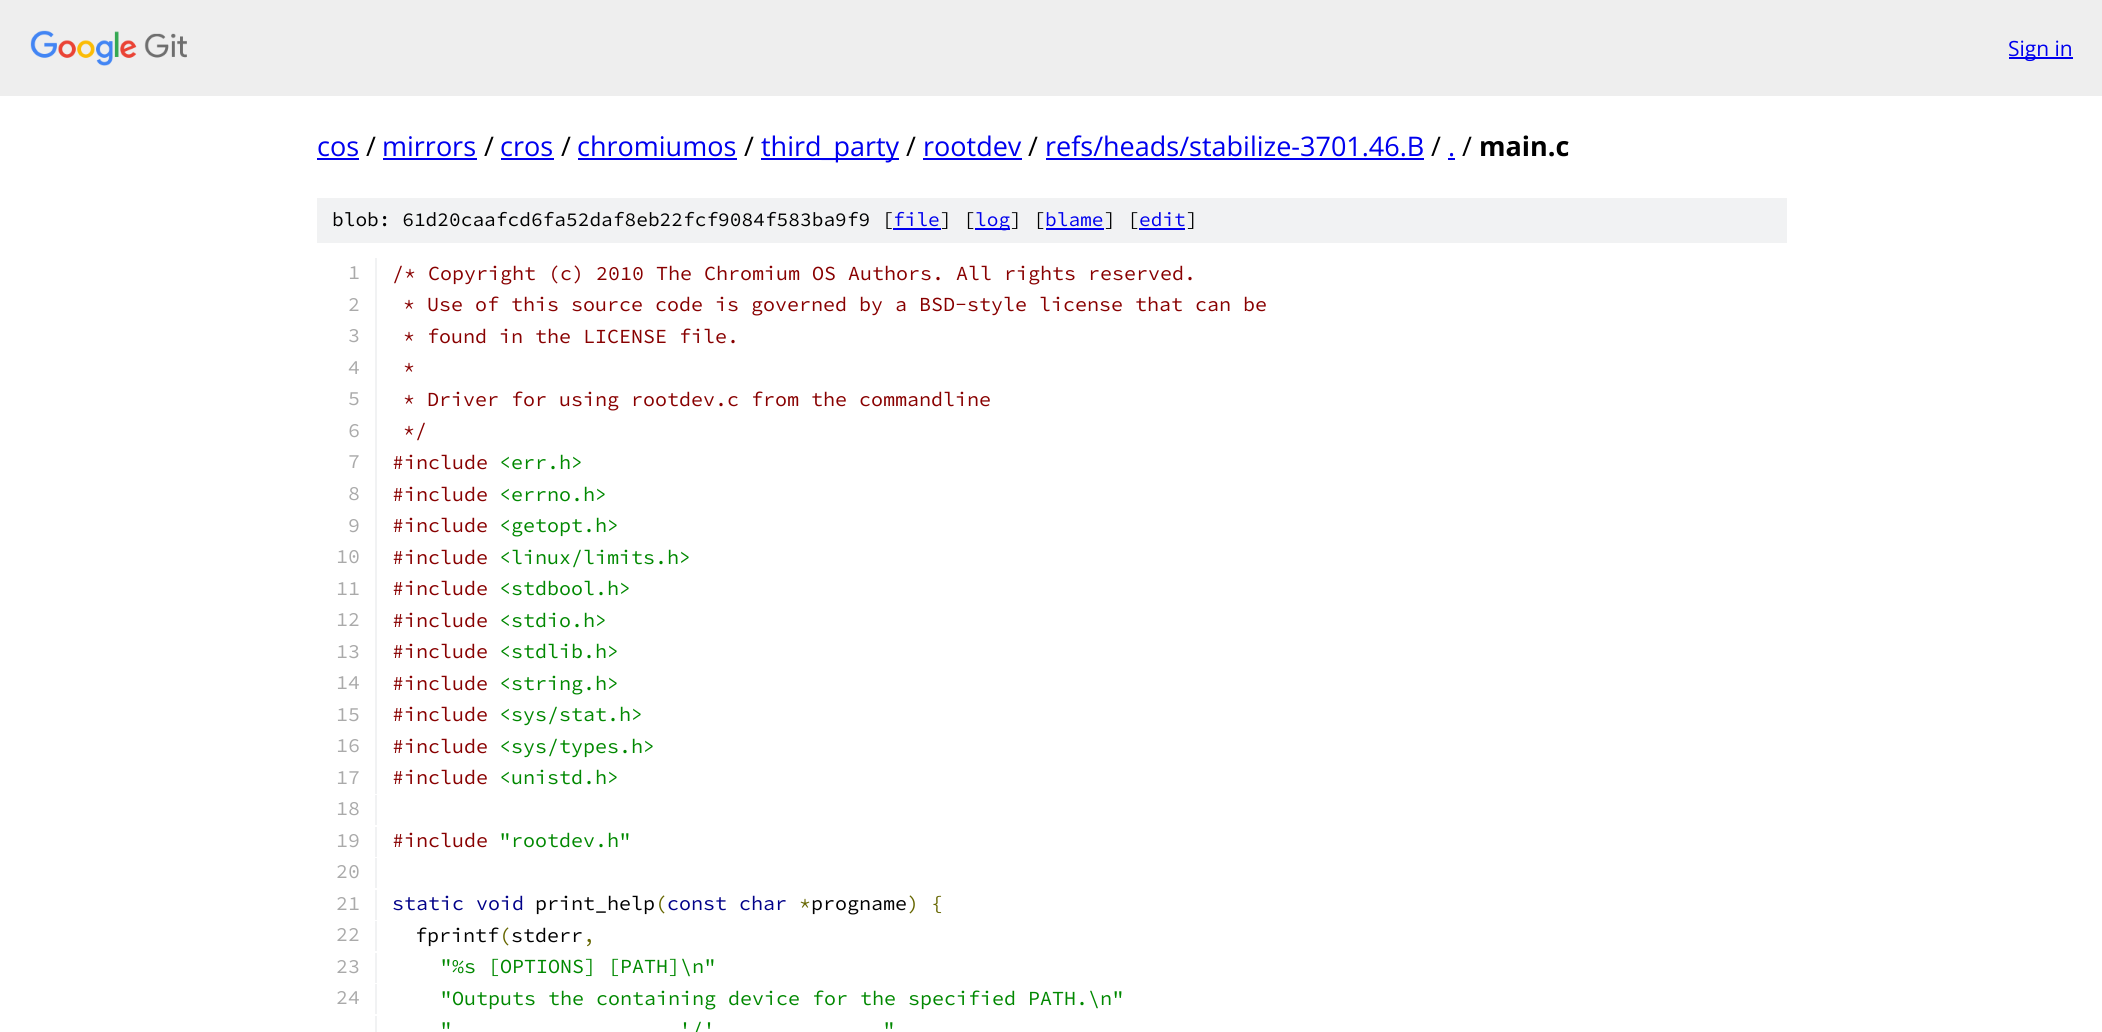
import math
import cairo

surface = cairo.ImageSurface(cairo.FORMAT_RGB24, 2102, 1032)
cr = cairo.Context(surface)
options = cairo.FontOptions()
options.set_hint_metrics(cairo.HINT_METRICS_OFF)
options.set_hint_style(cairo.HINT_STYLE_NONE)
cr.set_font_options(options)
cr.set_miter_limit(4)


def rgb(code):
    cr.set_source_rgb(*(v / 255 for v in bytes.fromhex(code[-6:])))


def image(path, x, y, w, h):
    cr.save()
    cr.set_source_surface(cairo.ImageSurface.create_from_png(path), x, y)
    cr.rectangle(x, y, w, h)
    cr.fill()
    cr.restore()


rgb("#ffffff")
cr.paint()
rgb("#eeeeee")
cr.rectangle(0, 0, 2102, 96)
cr.fill()
image("img/1.png", 30, 30, 157, 36)
for x, y, w, h, color in [
    (2009, 57, 64, 2, "#0000ee"),
    (317, 158, 42, 2, "#0000ee"),
    (383, 158, 94, 2, "#0000ee"),
    (501, 158, 53, 2, "#0000ee"),
    (578, 158, 159, 2, "#0000ee"),
    (761, 158, 138, 2, "#0000ee"),
    (923, 158, 99, 2, "#0000ee"),
    (1046, 158, 378, 2, "#0000ee"),
    (1448, 158, 7, 2, "#0000ee"),
    (317, 198, 1470, 45, "#f1f2f3"),
    (893, 228, 48, 2, "#0000ee"),
    (975, 228, 35, 2, "#0000ee"),
    (1046, 228, 58, 2, "#0000ee"),
    (1139, 228, 46, 2, "#0000ee"),
    (375, 258, 2, 536, "#f1f2f3"),
    (375, 795, 2, 30, "#f1f2f3"),
    (375, 827, 2, 30, "#f1f2f3"),
    (375, 858, 2, 30, "#f1f2f3"),
    (375, 890, 2, 30, "#f1f2f3"),
    (375, 921, 2, 30, "#f1f2f3"),
    (375, 953, 2, 30, "#f1f2f3"),
    (375, 984, 2, 30, "#f1f2f3"),
    (375, 1016, 2, 16, "#f1f2f3"),
]:
    rgb(color)
    cr.rectangle(x, y, w, h)
    cr.fill()
cr.select_font_face("Open Sans")
cr.set_font_size(21)
rgb("#0000ee")
cr.move_to(2008, 56)
cr.show_text("Sign in")
cr.set_font_size(27)
cr.move_to(317, 156)
cr.show_text("cos")
rgb("#000000")
cr.move_to(366, 156)
cr.show_text("/")
rgb("#0000ee")
cr.move_to(382, 156)
cr.show_text("mirrors")
rgb("#000000")
cr.move_to(484, 156)
cr.show_text("/")
rgb("#0000ee")
cr.move_to(500, 156)
cr.show_text("cros")
rgb("#000000")
cr.move_to(561, 156)
cr.show_text("/")
rgb("#0000ee")
cr.move_to(577, 156)
cr.show_text("chromiumos")
rgb("#000000")
cr.move_to(744, 156)
cr.show_text("/")
rgb("#0000ee")
cr.move_to(761, 156)
cr.show_text("third_party")
rgb("#000000")
cr.move_to(906, 156)
cr.show_text("/")
rgb("#0000ee")
cr.move_to(923, 156)
cr.show_text("rootdev")
rgb("#000000")
cr.move_to(1028, 156)
cr.show_text("/")
rgb("#0000ee")
cr.move_to(1045, 156)
cr.show_text("refs/heads/stabilize-3701.46.B")
rgb("#000000")
cr.move_to(1431, 156)
cr.show_text("/")
rgb("#0000ee")
cr.move_to(1448, 156)
cr.show_text(".")
rgb("#000000")
cr.move_to(1462, 156)
cr.show_text("/")
cr.select_font_face("Open Sans", cairo.FONT_SLANT_NORMAL, cairo.FONT_WEIGHT_BOLD)
cr.move_to(1479, 156)
cr.show_text("main.c")
cr.select_font_face("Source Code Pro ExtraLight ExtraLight")
cr.set_font_size(19.5)
cr.move_to(332, 226)
cr.show_text("blob: 61d20caafcd6fa52daf8eb22fcf9084f583ba9f9 [")
rgb("#0000ee")
cr.move_to(893, 226)
cr.show_text("file")
rgb("#000000")
cr.move_to(940, 226)
cr.show_text("] [")
rgb("#0000ee")
cr.move_to(975, 226)
cr.show_text("log")
rgb("#000000")
cr.move_to(1010, 226)
cr.show_text("] [")
rgb("#0000ee")
cr.move_to(1045, 226)
cr.show_text("blame")
rgb("#000000")
cr.move_to(1104, 226)
cr.show_text("] [")
rgb("#0000ee")
cr.move_to(1139, 226)
cr.show_text("edit")
rgb("#000000")
cr.move_to(1186, 226)
cr.show_text("]")
cr.set_font_size(20)
rgb("#aaaaaa")
cr.move_to(348, 279)
cr.show_text("1")
rgb("#880000")
cr.move_to(392, 280)
cr.show_text("/* Copyright (c) 2010 The Chromium OS Authors. All rights reserved.")
rgb("#aaaaaa")
cr.move_to(348, 311)
cr.show_text("2")
rgb("#880000")
cr.move_to(403, 311)
cr.show_text("* Use of this source code is governed by a BSD-style license that can be")
rgb("#aaaaaa")
cr.move_to(348, 342)
cr.show_text("3")
rgb("#880000")
cr.move_to(403, 343)
cr.show_text("* found in the LICENSE file.")
rgb("#aaaaaa")
cr.move_to(348, 374)
cr.show_text("4")
rgb("#880000")
cr.move_to(403, 374)
cr.show_text("*")
rgb("#aaaaaa")
cr.move_to(348, 405)
cr.show_text("5")
rgb("#880000")
cr.move_to(403, 406)
cr.show_text("* Driver for using rootdev.c from the commandline")
rgb("#aaaaaa")
cr.move_to(348, 437)
cr.show_text("6")
rgb("#880000")
cr.move_to(403, 437)
cr.show_text("*/")
rgb("#aaaaaa")
cr.move_to(348, 468)
cr.show_text("7")
rgb("#880000")
cr.move_to(392, 469)
cr.show_text("#include")
rgb("#008800")
cr.move_to(499, 469)
cr.show_text("<err.h>")
rgb("#aaaaaa")
cr.move_to(348, 500)
cr.show_text("8")
rgb("#880000")
cr.move_to(392, 501)
cr.show_text("#include")
rgb("#008800")
cr.move_to(499, 501)
cr.show_text("<errno.h>")
rgb("#aaaaaa")
cr.move_to(348, 532)
cr.show_text("9")
rgb("#880000")
cr.move_to(392, 532)
cr.show_text("#include")
rgb("#008800")
cr.move_to(499, 532)
cr.show_text("<getopt.h>")
rgb("#aaaaaa")
cr.move_to(336, 563)
cr.show_text("10")
rgb("#880000")
cr.move_to(392, 564)
cr.show_text("#include")
rgb("#008800")
cr.move_to(499, 564)
cr.show_text("<linux/limits.h>")
rgb("#aaaaaa")
cr.move_to(336, 595)
cr.show_text("11")
rgb("#880000")
cr.move_to(392, 595)
cr.show_text("#include")
rgb("#008800")
cr.move_to(499, 595)
cr.show_text("<stdbool.h>")
rgb("#aaaaaa")
cr.move_to(336, 626)
cr.show_text("12")
rgb("#880000")
cr.move_to(392, 627)
cr.show_text("#include")
rgb("#008800")
cr.move_to(499, 627)
cr.show_text("<stdio.h>")
rgb("#aaaaaa")
cr.move_to(336, 658)
cr.show_text("13")
rgb("#880000")
cr.move_to(392, 658)
cr.show_text("#include")
rgb("#008800")
cr.move_to(499, 658)
cr.show_text("<stdlib.h>")
rgb("#aaaaaa")
cr.move_to(336, 689)
cr.show_text("14")
rgb("#880000")
cr.move_to(392, 690)
cr.show_text("#include")
rgb("#008800")
cr.move_to(499, 690)
cr.show_text("<string.h>")
rgb("#aaaaaa")
cr.move_to(336, 721)
cr.show_text("15")
rgb("#880000")
cr.move_to(392, 721)
cr.show_text("#include")
rgb("#008800")
cr.move_to(499, 721)
cr.show_text("<sys/stat.h>")
rgb("#aaaaaa")
cr.move_to(336, 752)
cr.show_text("16")
rgb("#880000")
cr.move_to(392, 753)
cr.show_text("#include")
rgb("#008800")
cr.move_to(499, 753)
cr.show_text("<sys/types.h>")
rgb("#aaaaaa")
cr.move_to(336, 784)
cr.show_text("17")
rgb("#880000")
cr.move_to(392, 784)
cr.show_text("#include")
rgb("#008800")
cr.move_to(499, 784)
cr.show_text("<unistd.h>")
rgb("#aaaaaa")
cr.move_to(336, 815)
cr.show_text("18")
cr.move_to(336, 847)
cr.show_text("19")
rgb("#880000")
cr.move_to(392, 847)
cr.show_text("#include")
rgb("#008800")
cr.move_to(499, 847)
cr.show_text("\"rootdev.h\"")
rgb("#aaaaaa")
cr.move_to(336, 878)
cr.show_text("20")
cr.move_to(336, 910)
cr.show_text("21")
rgb("#000088")
cr.move_to(392, 910)
cr.show_text("static void")
rgb("#000000")
cr.move_to(535, 910)
cr.show_text("print_help")
rgb("#666600")
cr.move_to(655, 910)
cr.show_text("(")
rgb("#000088")
cr.move_to(667, 910)
cr.show_text("const char")
rgb("#666600")
cr.move_to(799, 910)
cr.show_text("*")
rgb("#000000")
cr.move_to(811, 910)
cr.show_text("progname")
rgb("#666600")
cr.move_to(907, 910)
cr.show_text(") {")
rgb("#aaaaaa")
cr.move_to(336, 941)
cr.show_text("22")
rgb("#000000")
cr.move_to(415, 942)
cr.show_text("fprintf stderr")
rgb("#666600")
cr.move_to(499, 942)
cr.show_text("(")
cr.move_to(583, 942)
cr.show_text(",")
rgb("#aaaaaa")
cr.move_to(336, 973)
cr.show_text("23")
rgb("#008800")
cr.move_to(440, 973)
cr.show_text("\"%s [OPTIONS] [PATH]\\n\"")
rgb("#aaaaaa")
cr.move_to(336, 1004)
cr.show_text("24")
rgb("#008800")
for x, y, s in [
    (440, 1005, "\"Outputs the containing device for the specified PATH.\\n\""),
    (440, 1036, "\""),
    (679, 1036, "'/'"),
    (883, 1036, "\""),
]:
    cr.move_to(x, y)
    cr.show_text(s)
surface.write_to_png("page.png")
